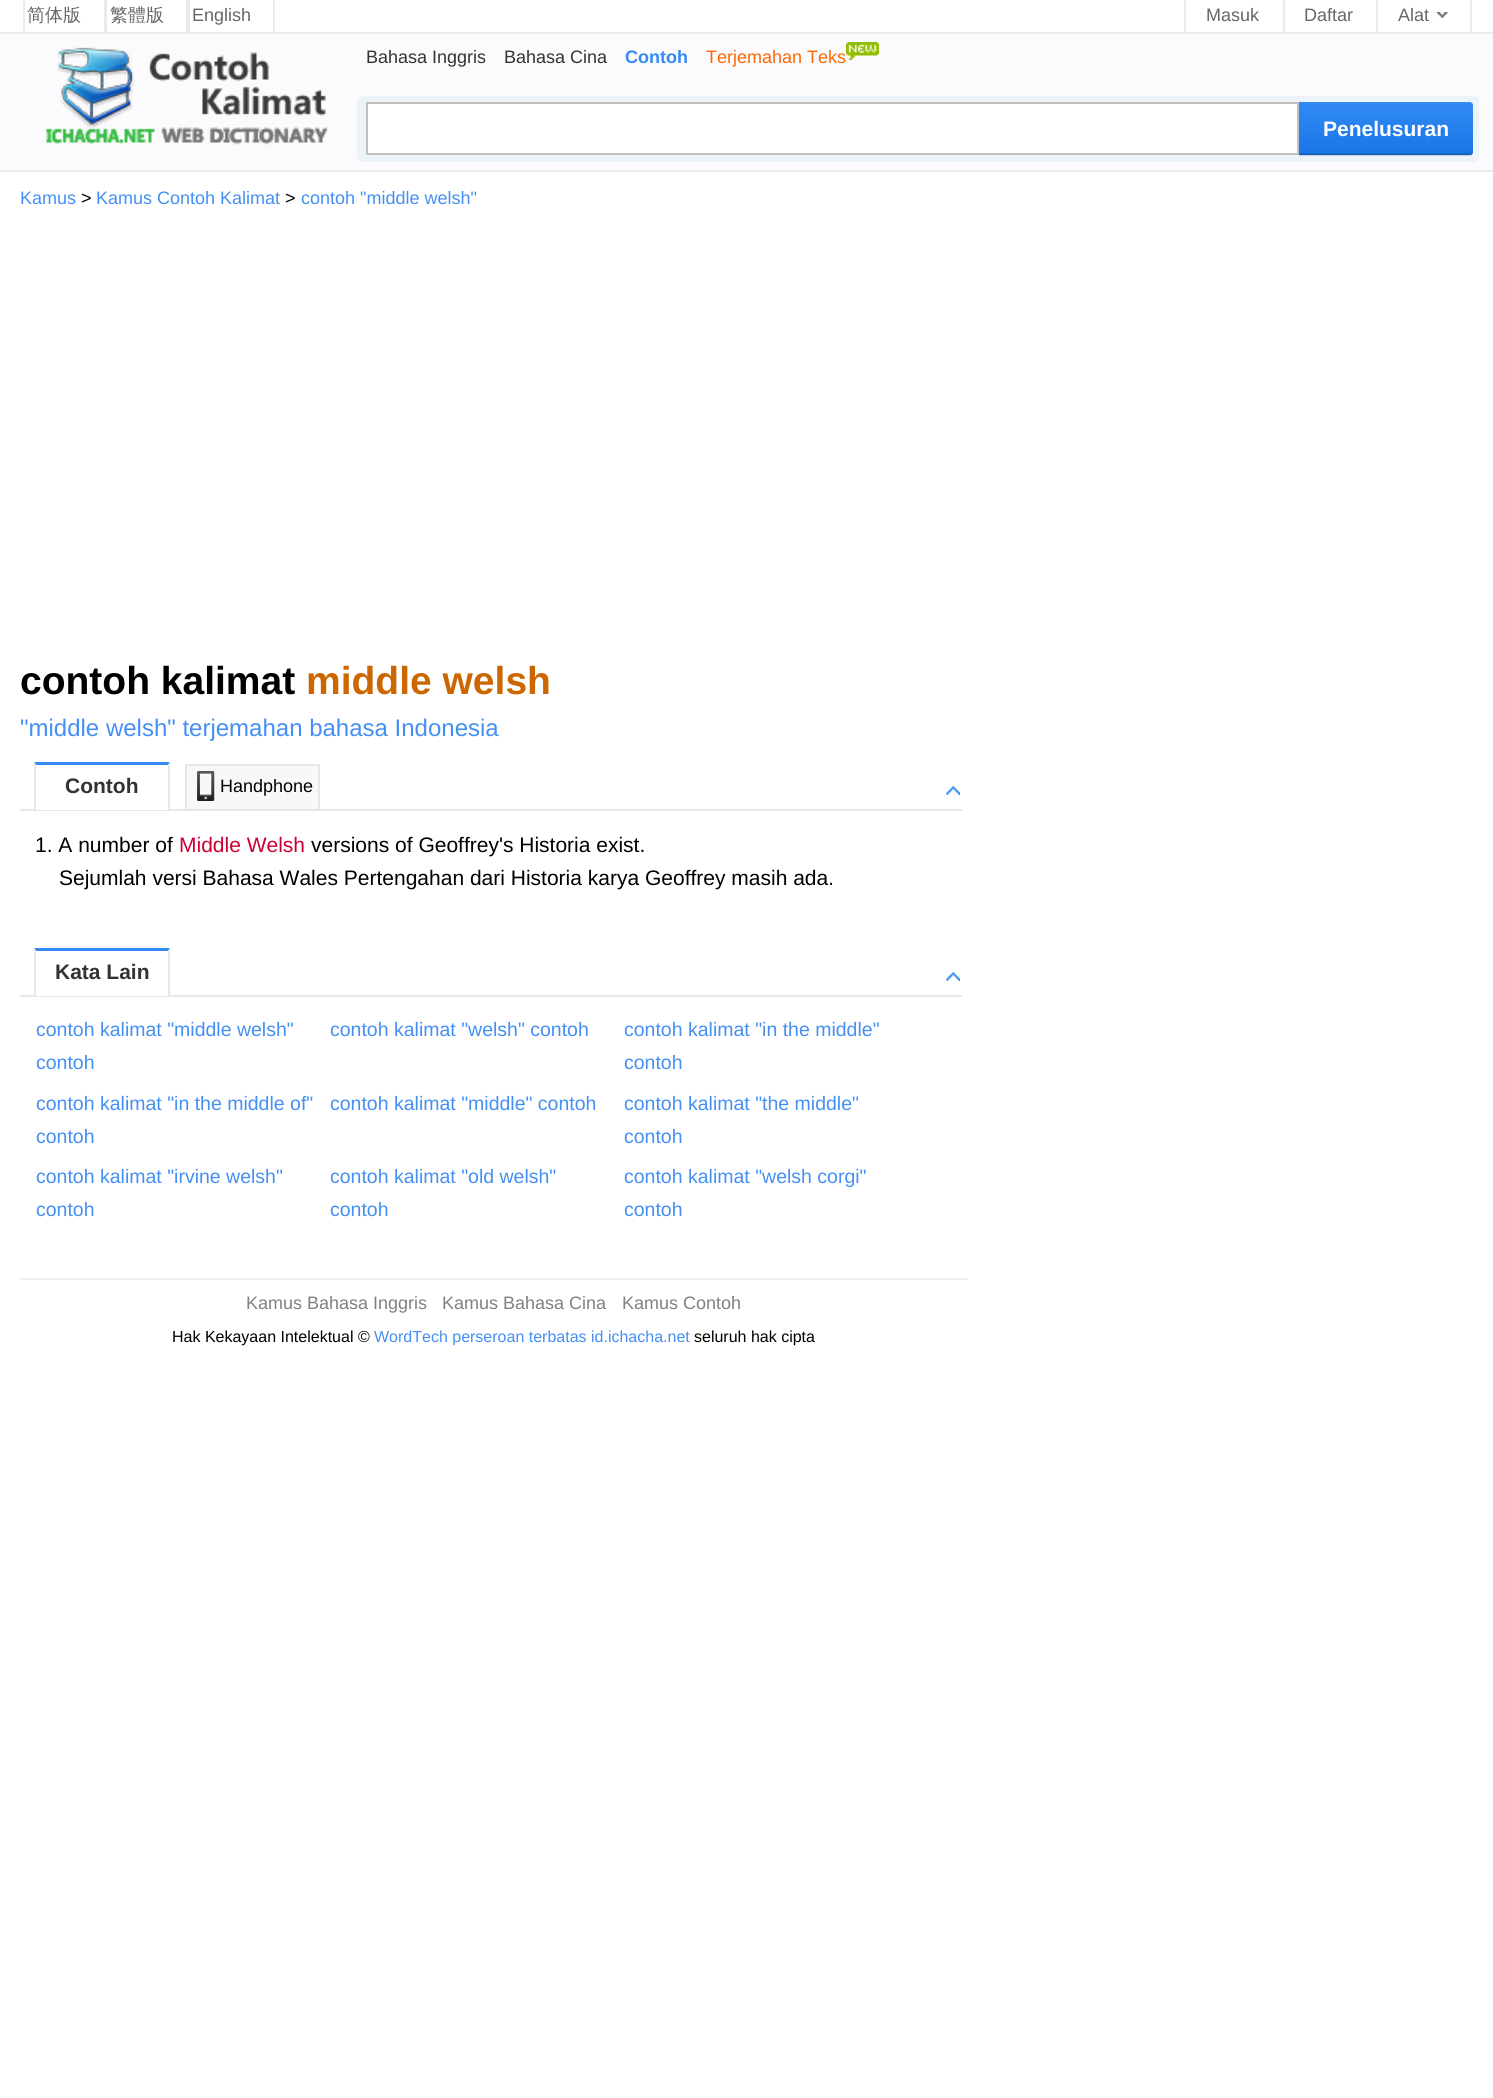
import math
import cairo

surface = cairo.ImageSurface(cairo.FORMAT_RGB24, 1493, 2098)
cr = cairo.Context(surface)
options = cairo.FontOptions()
options.set_hint_metrics(cairo.HINT_METRICS_OFF)
options.set_hint_style(cairo.HINT_STYLE_NONE)
cr.set_font_options(options)
cr.set_miter_limit(4)


def rgb(code):
    cr.set_source_rgb(*(v / 255 for v in bytes.fromhex(code[-6:])))


def rrect(x, y, w, h, r):
    cr.new_sub_path()
    for i, (u, v) in enumerate([(x + w - r, y + h - r), (x + r, y + h - r), (x + r, y + r), (x + w - r, y + r)]):
        cr.arc(u, v, r, i * math.pi / 2, (i + 1) * math.pi / 2)
    cr.close_path()


def image(path, x, y, w, h):
    cr.save()
    cr.set_source_surface(cairo.ImageSurface.create_from_png(path), x, y)
    cr.rectangle(x, y, w, h)
    cr.fill()
    cr.restore()


rgb("#ffffff")
cr.paint()
for x, y, w, h, color in [
    (0, 32, 1493, 2, "#ebebeb"),
    (104, 0, 3, 32, "#ebebeb"),
    (23, 0, 2, 32, "#ebebeb"),
    (186, 0, 4, 32, "#ebebeb"),
    (273, 0, 2, 32, "#ebebeb"),
    (1184, 0, 2, 32, "#ebebeb"),
    (1283, 0, 2, 32, "#ebebeb"),
    (1470, 0, 2, 32, "#ebebeb"),
    (1376, 0, 2, 32, "#ebebeb"),
]:
    rgb(color)
    cr.rectangle(x, y, w, h)
    cr.fill()
image("img/1.png", 1437, 12, 11, 6)
rgb("#fbfbfd")
cr.rectangle(0, 34, 1493, 136)
cr.fill()
rgb("#ebebeb")
cr.rectangle(0, 170, 1493, 2)
cr.fill()
image("img/2.png", 46, 47, 282, 98)
image("img/3.png", 846, 42, 33, 18)
rgb("#edf4f9")
rrect(357, 96, 1122, 66, 5)
cr.fill()
rgb("#ffffff")
cr.rectangle(367, 103, 931, 51)
cr.fill_preserve()
rgb("#c0c0c0")
cr.stroke()
rgb("#c9cfd4")
cr.new_path()
cr.move_to(1299, 154)
cr.line_to(1299, 156)
cr.line_to(1470, 156)
cr.curve_to(1473, 156, 1473, 154, 1473, 152)
cr.curve_to(1473, 153, 1472, 154, 1470, 154)
cr.close_path()
cr.fill()
gradient = cairo.LinearGradient(1386, 102, 1386, 155)
gradient.add_color_stop_rgba(0, 0.196, 0.541, 0.957, 1)
gradient.add_color_stop_rgba(1, 0.094, 0.459, 0.906, 1)
cr.set_source(gradient)
cr.new_path()
cr.move_to(1299, 102)
cr.line_to(1470, 102)
cr.curve_to(1471.5, 102, 1473, 103.5, 1473, 105)
cr.line_to(1473, 152)
cr.curve_to(1473, 153.5, 1471.5, 155, 1470, 155)
cr.line_to(1299, 155)
cr.close_path()
cr.fill()
cr.set_source_rgba(0, 0, 0, 0.15)
cr.new_path()
cr.move_to(1299, 153)
cr.line_to(1299, 155)
cr.line_to(1470, 155)
cr.curve_to(1472, 155, 1473, 154, 1473, 152)
cr.line_to(1473, 150)
cr.curve_to(1473, 152, 1472, 153, 1470, 153)
cr.close_path()
cr.fill()
rgb("#e7e7e7")
cr.rectangle(20, 809, 942, 2)
cr.fill()
rgb("#ffffff")
cr.rectangle(35, 809, 135, 1)
cr.fill()
rgb("#328af4")
cr.new_path()
cr.move_to(34, 762)
cr.line_to(170, 762)
cr.line_to(168, 765)
cr.line_to(36, 765)
cr.close_path()
cr.fill()
rgb("#e7e7e7")
cr.new_path()
cr.move_to(170, 762)
cr.line_to(170, 810)
cr.line_to(168, 810)
cr.line_to(168, 765)
cr.close_path()
cr.fill()
cr.new_path()
cr.move_to(34, 810)
cr.line_to(34, 762)
cr.line_to(36, 765)
cr.line_to(36, 810)
cr.close_path()
cr.fill()
for x, y, w, h, color in [
    (187, 766, 131, 43, "#f8f8f8"),
    (185, 764, 135, 2, "#e7e7e7"),
    (318, 764, 2, 45, "#e7e7e7"),
    (185, 764, 2, 45, "#e7e7e7"),
]:
    rgb(color)
    cr.rectangle(x, y, w, h)
    cr.fill()
image("img/4.png", 197, 771, 18, 30)
image("img/5.png", 946, 785, 14, 10)
cr.rectangle(20, 995, 942, 2)
cr.fill()
rgb("#ffffff")
cr.rectangle(35, 995, 135, 1)
cr.fill()
rgb("#328af4")
cr.new_path()
cr.move_to(34, 948)
cr.line_to(170, 948)
cr.line_to(168, 951)
cr.line_to(36, 951)
cr.close_path()
cr.fill()
rgb("#e7e7e7")
cr.new_path()
cr.move_to(170, 948)
cr.line_to(170, 996)
cr.line_to(168, 996)
cr.line_to(168, 951)
cr.close_path()
cr.fill()
cr.new_path()
cr.move_to(34, 996)
cr.line_to(34, 948)
cr.line_to(36, 951)
cr.line_to(36, 996)
cr.close_path()
cr.fill()
image("img/5.png", 946, 971, 14, 10)
rgb("#efefef")
cr.rectangle(20, 1278, 948, 2)
cr.fill()
cr.select_font_face("WenQuanYi Zen Hei Medium")
cr.set_font_size(18)
rgb("#666666")
cr.move_to(27, 21)
cr.show_text("简体版")
cr.move_to(110, 21)
cr.show_text("繁體版")
cr.select_font_face("Liberation Sans")
for x, y, s in [
    (192, 21, "English"),
    (1206, 21, "Masuk"),
    (1304, 21, "Daftar"),
    (1398, 21, "Alat"),
]:
    cr.move_to(x, y)
    cr.show_text(s)
rgb("#333333")
cr.move_to(366, 63)
cr.show_text("Bahasa Inggris")
cr.move_to(504, 63)
cr.show_text("Bahasa Cina")
cr.select_font_face("Liberation Sans", cairo.FONT_SLANT_NORMAL, cairo.FONT_WEIGHT_BOLD)
rgb("#328af4")
cr.move_to(625, 63)
cr.show_text("Contoh")
cr.select_font_face("Liberation Sans")
rgb("#ff6600")
cr.move_to(706, 63)
cr.show_text("Terjemahan Teks")
cr.select_font_face("Liberation Sans", cairo.FONT_SLANT_NORMAL, cairo.FONT_WEIGHT_BOLD)
cr.set_font_size(21)
rgb("#ffffff")
cr.move_to(1323, 136)
cr.show_text("Penelusuran")
cr.select_font_face("Liberation Sans")
cr.set_font_size(18)
rgb("#448ff4")
cr.move_to(20, 204)
cr.show_text("Kamus")
rgb("#000000")
cr.move_to(81, 204)
cr.show_text(">")
rgb("#448ff4")
cr.move_to(96, 204)
cr.show_text("Kamus Contoh Kalimat")
rgb("#000000")
cr.move_to(285, 204)
cr.show_text(">")
rgb("#448ff4")
cr.move_to(301, 204)
cr.show_text("contoh \"middle welsh\"")
cr.select_font_face("Liberation Sans", cairo.FONT_SLANT_NORMAL, cairo.FONT_WEIGHT_BOLD)
cr.set_font_size(39)
rgb("#000000")
cr.move_to(20, 694)
cr.show_text("contoh kalimat")
rgb("#cc6600")
cr.move_to(306, 694)
cr.show_text("middle welsh")
cr.select_font_face("Liberation Sans")
cr.set_font_size(24)
rgb("#448ff4")
cr.move_to(20, 736)
cr.show_text("\"middle welsh\" terjemahan bahasa Indonesia")
cr.select_font_face("Liberation Sans", cairo.FONT_SLANT_NORMAL, cairo.FONT_WEIGHT_BOLD)
cr.set_font_size(21)
rgb("#333333")
cr.move_to(65, 793)
cr.show_text("Contoh")
cr.select_font_face("Liberation Sans")
cr.set_font_size(18)
rgb("#000000")
cr.move_to(220, 792)
cr.show_text("Handphone")
cr.set_font_size(21)
cr.move_to(35, 852)
cr.show_text("1. A number of")
rgb("#cc0033")
cr.move_to(179, 852)
cr.show_text("Middle Welsh")
rgb("#000000")
cr.move_to(311, 852)
cr.show_text("versions of Geoffrey's Historia exist.")
cr.move_to(59, 885)
cr.show_text("Sejumlah versi Bahasa Wales Pertengahan dari Historia karya Geoffrey masih ada.")
cr.select_font_face("Liberation Sans", cairo.FONT_SLANT_NORMAL, cairo.FONT_WEIGHT_BOLD)
rgb("#333333")
cr.move_to(55, 979)
cr.show_text("Kata Lain")
cr.select_font_face("Liberation Sans")
cr.set_font_size(19.5)
rgb("#448ff4")
for x, y, s in [
    (36, 1036, "contoh kalimat \"middle welsh\""),
    (36, 1069, "contoh"),
    (330, 1036, "contoh kalimat \"welsh\" contoh"),
    (624, 1036, "contoh kalimat \"in the middle\""),
    (624, 1069, "contoh"),
    (36, 1110, "contoh kalimat \"in the middle of\""),
    (36, 1143, "contoh"),
    (330, 1110, "contoh kalimat \"middle\" contoh"),
    (624, 1110, "contoh kalimat \"the middle\""),
    (624, 1143, "contoh"),
    (36, 1183, "contoh kalimat \"irvine welsh\""),
    (36, 1216, "contoh"),
    (330, 1183, "contoh kalimat \"old welsh\""),
    (330, 1216, "contoh"),
    (624, 1183, "contoh kalimat \"welsh corgi\""),
    (624, 1216, "contoh"),
]:
    cr.move_to(x, y)
    cr.show_text(s)
cr.set_font_size(18)
rgb("#808080")
for x, y, s in [
    (246, 1309, "Kamus Bahasa Inggris"),
    (442, 1309, "Kamus Bahasa Cina"),
    (622, 1309, "Kamus Contoh"),
]:
    cr.move_to(x, y)
    cr.show_text(s)
cr.set_font_size(16)
rgb("#000000")
cr.move_to(172, 1342)
cr.show_text("Hak Kekayaan Intelektual ©")
rgb("#448ff4")
cr.move_to(374, 1342)
cr.show_text("WordTech perseroan terbatas id.ichacha.net")
rgb("#000000")
cr.move_to(694, 1342)
cr.show_text("seluruh hak cipta")
surface.write_to_png("page.png")
